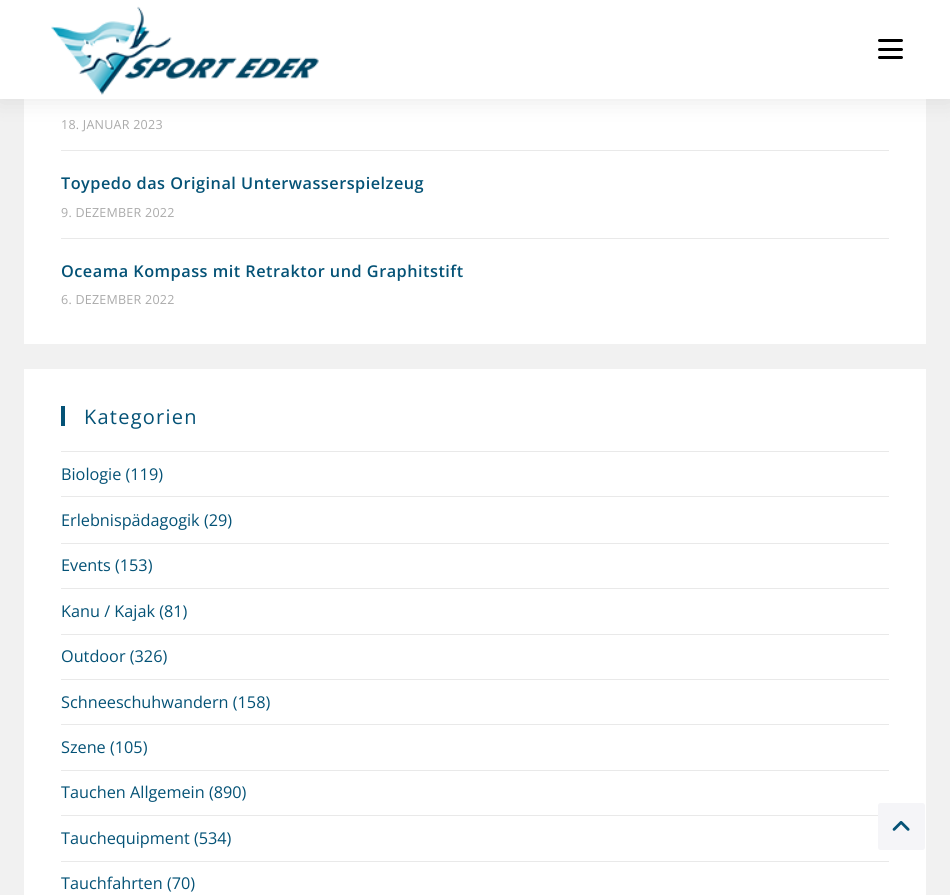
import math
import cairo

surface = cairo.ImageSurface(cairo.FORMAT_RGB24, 950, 895)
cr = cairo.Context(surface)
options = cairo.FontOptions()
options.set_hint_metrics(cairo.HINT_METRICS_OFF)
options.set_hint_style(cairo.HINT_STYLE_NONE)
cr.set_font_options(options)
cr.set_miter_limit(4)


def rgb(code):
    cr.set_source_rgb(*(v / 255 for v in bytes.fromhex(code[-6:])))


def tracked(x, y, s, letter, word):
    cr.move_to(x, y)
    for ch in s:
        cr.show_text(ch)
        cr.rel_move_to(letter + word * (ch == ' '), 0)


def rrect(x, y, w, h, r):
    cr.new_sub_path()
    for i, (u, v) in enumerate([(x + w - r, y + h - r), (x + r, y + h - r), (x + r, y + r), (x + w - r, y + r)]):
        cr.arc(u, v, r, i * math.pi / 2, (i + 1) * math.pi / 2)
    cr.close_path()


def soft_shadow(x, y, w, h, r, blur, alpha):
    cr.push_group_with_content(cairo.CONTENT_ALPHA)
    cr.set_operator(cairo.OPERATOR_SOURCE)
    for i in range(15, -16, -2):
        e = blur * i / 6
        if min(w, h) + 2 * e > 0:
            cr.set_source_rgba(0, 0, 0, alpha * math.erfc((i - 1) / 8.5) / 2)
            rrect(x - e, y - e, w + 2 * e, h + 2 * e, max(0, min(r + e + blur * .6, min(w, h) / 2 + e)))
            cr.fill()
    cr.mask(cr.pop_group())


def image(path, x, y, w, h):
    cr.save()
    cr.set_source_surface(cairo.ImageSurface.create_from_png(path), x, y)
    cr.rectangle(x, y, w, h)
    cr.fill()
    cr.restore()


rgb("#f1f1f1")
cr.paint()
rgb("#ffffff")
cr.rectangle(24, 99, 902, 245)
cr.fill()
rgb("#000000")
soft_shadow(0, 0, 950, 99, 0, 12.5, 0.1)
rgb("#ffffff")
cr.rectangle(0, 0, 950, 99)
cr.fill()
image("img/1.png", 51, 6, 268, 89)
rgb("#000000")
rrect(878, 48, 25, 3, 1.5)
cr.fill()
rrect(878, 39, 25, 3, 1.5)
cr.fill()
rrect(878, 56, 25, 3, 1.5)
cr.fill()
for x, y, w, h, color in [
    (61, 150, 828, 1, "#e9e9e9"),
    (61, 238, 828, 1, "#e9e9e9"),
    (24, 369, 902, 526, "#ffffff"),
    (61, 406, 4, 20, "#045276"),
    (61, 451, 828, 1, "#e9e9e9"),
    (61, 496, 828, 1, "#e9e9e9"),
    (61, 543, 828, 1, "#e9e9e9"),
    (61, 588, 828, 1, "#e9e9e9"),
    (61, 634, 828, 1, "#e9e9e9"),
    (61, 679, 828, 1, "#e9e9e9"),
    (61, 724, 828, 1, "#e9e9e9"),
    (61, 770, 828, 1, "#e9e9e9"),
    (61, 815, 817, 1, "#e9e9e9"),
    (61, 861, 828, 1, "#e9e9e9"),
]:
    rgb(color)
    cr.rectangle(x, y, w, h)
    cr.fill()
rgb("#f5f5f8")
rrect(878, 803, 47, 47, 2.5)
cr.fill()
image("img/2.png", 892, 821, 18, 10)
cr.select_font_face("Open Sans")
cr.set_font_size(12.5)
rgb("#aaaaaa")
tracked(61, 129, "18. JANUAR 2023", 0.25, 0)
cr.select_font_face("Open Sans SemiBold")
cr.set_font_size(16.25)
rgb("#045276")
tracked(61, 189, "Toypedo das Original Unterwasserspielzeug", 0.5, 0)
cr.select_font_face("Open Sans")
cr.set_font_size(12.5)
rgb("#aaaaaa")
tracked(61, 217, "9. DEZEMBER 2022", 0.25, 0)
cr.select_font_face("Open Sans SemiBold")
cr.set_font_size(16.25)
rgb("#045276")
tracked(61, 277, "Oceama Kompass mit Retraktor und Graphitstift", 0.5, 0)
cr.select_font_face("Open Sans")
cr.set_font_size(12.5)
rgb("#aaaaaa")
tracked(61, 304, "6. DEZEMBER 2022", 0.25, 0)
cr.set_font_size(20)
rgb("#045276")
tracked(84, 424, "Kategorien", 1.25, 0)
cr.set_font_size(16.25)
for x, y, s in [
    (61, 480, "Biologie (119)"),
    (61, 526, "Erlebnispädagogik (29)"),
    (61, 571, "Events (153)"),
    (61, 617, "Kanu / Kajak (81)"),
    (61, 662, "Outdoor (326)"),
    (61, 708, "Schneeschuhwandern (158)"),
    (61, 753, "Szene (105)"),
    (61, 798, "Tauchen Allgemein (890)"),
    (61, 844, "Tauchequipment (534)"),
    (61, 889, "Tauchfahrten (70)"),
]:
    cr.move_to(x, y)
    cr.show_text(s)
surface.write_to_png("page.png")
